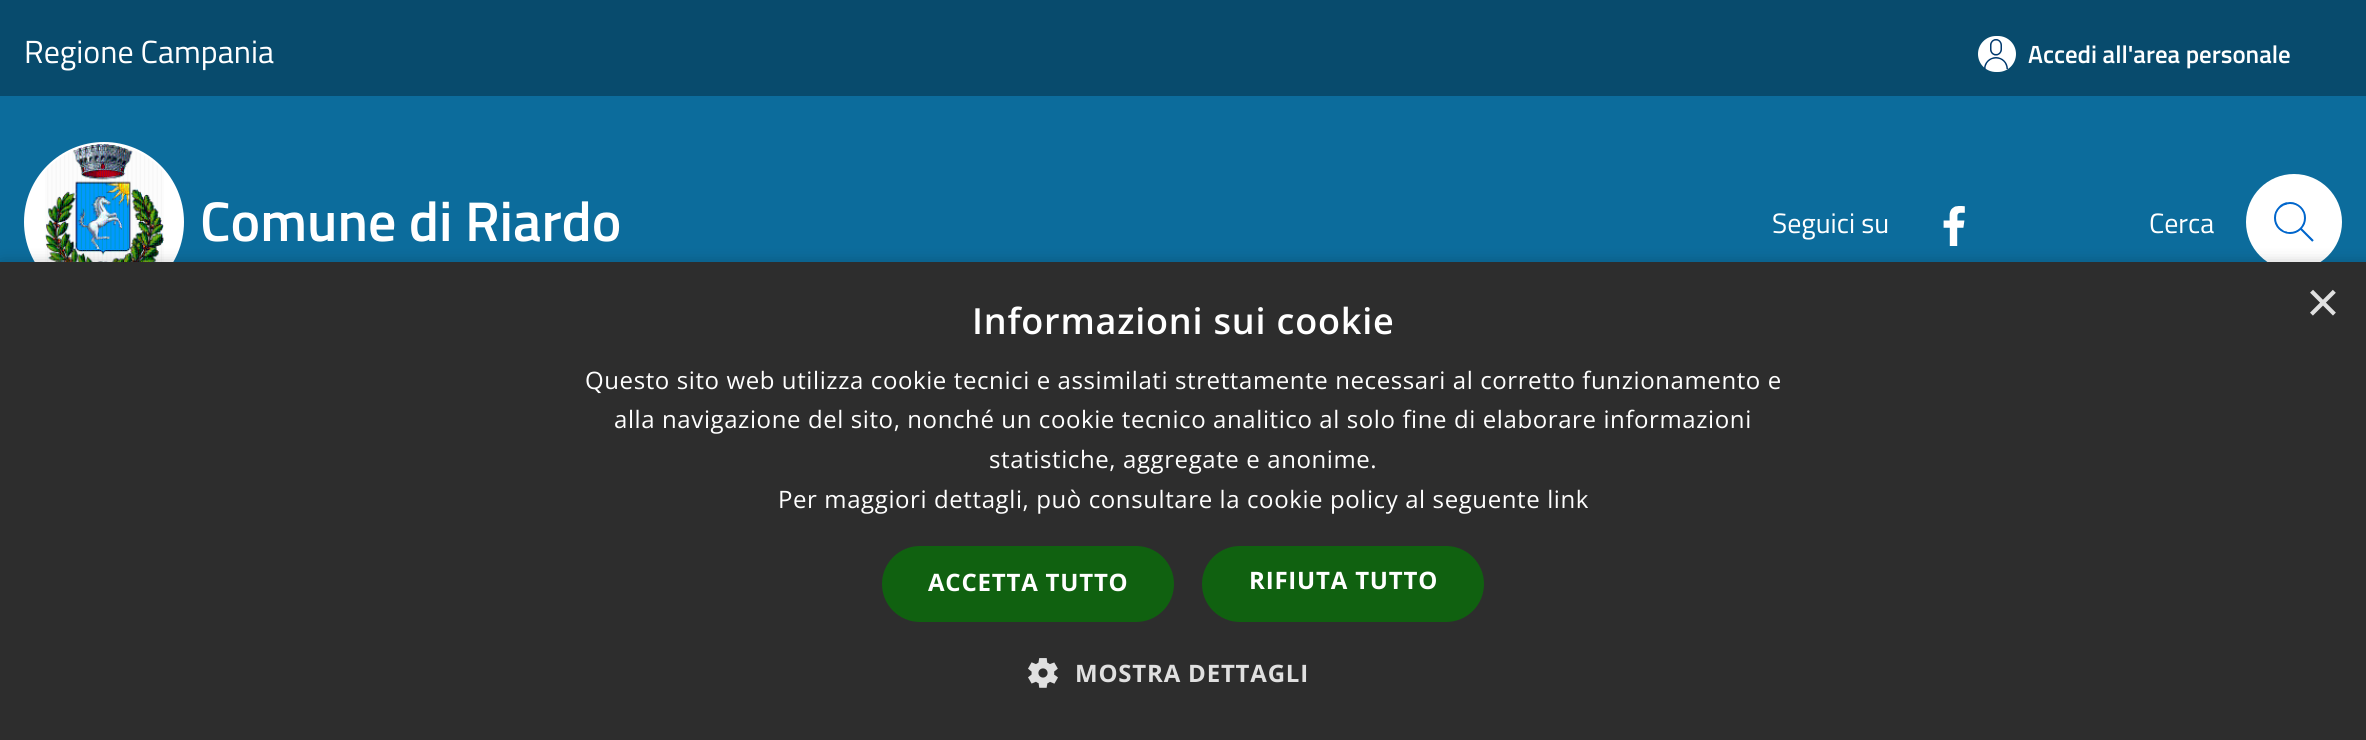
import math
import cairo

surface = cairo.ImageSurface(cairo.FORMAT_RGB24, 2366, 740)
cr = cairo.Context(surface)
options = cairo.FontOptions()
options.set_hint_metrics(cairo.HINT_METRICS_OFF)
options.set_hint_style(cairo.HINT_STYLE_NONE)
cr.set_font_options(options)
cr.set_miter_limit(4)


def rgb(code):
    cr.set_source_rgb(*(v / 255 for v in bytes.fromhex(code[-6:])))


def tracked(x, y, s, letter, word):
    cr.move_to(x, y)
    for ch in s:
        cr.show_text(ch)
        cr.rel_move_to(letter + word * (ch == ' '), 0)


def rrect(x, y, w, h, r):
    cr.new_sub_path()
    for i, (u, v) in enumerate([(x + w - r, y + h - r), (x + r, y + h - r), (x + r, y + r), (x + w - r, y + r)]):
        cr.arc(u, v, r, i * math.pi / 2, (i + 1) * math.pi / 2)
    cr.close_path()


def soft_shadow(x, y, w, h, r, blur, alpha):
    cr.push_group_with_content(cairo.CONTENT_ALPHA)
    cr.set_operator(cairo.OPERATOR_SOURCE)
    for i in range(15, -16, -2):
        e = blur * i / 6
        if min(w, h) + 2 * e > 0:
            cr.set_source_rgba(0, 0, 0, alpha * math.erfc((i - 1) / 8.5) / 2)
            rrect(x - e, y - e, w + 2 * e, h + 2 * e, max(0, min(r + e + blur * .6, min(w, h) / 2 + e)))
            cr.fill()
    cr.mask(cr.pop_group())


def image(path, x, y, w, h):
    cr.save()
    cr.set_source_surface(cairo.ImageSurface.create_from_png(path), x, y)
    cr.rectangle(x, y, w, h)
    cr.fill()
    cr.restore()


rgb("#084b6d")
cr.paint()
rgb("#ffffff")
rrect(1978, 36, 38, 36, 18)
cr.fill()
image("img/1.png", 1984, 39, 24, 30)
rgb("#0c6c9c")
cr.rectangle(0, 96, 2366, 166)
cr.fill()
rgb("#ffffff")
cr.arc(104, 222, 79, 0, 2 * math.pi)
cr.fill_preserve()
cr.stroke()
image("img/2.png", 45, 144, 119, 118)
image("img/3.png", 1943, 206, 22, 40)
cr.arc(2294, 222, 48, 0, 2 * math.pi)
cr.fill()
image("img/4.png", 2274, 202, 40, 40)
rgb("#000000")
soft_shadow(2, 266, 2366, 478, 0, 8, 0.35)
rgb("#2d2d2d")
cr.rectangle(0, 262, 2366, 478)
cr.fill()
rgb("#106110")
rrect(882, 546, 292, 76, 38)
cr.fill()
rrect(1202, 546, 282, 76, 38)
cr.fill()
image("img/5.png", 1028, 658, 30, 30)
cr.select_font_face("Titillium Web")
cr.set_font_size(32)
rgb("#ffffff")
cr.move_to(24, 63)
cr.show_text("Regione Campania")
cr.select_font_face("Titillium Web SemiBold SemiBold")
cr.set_font_size(24.9)
cr.move_to(2028, 63)
cr.show_text("Accedi all'area personale")
cr.set_font_size(56)
cr.move_to(200, 241)
cr.show_text("Comune di Riardo")
cr.select_font_face("Titillium Web")
cr.set_font_size(28)
cr.move_to(1772, 233)
cr.show_text("Seguici su")
cr.move_to(2149, 233)
cr.show_text("Cerca")
cr.select_font_face("Liberation Sans")
cr.set_font_size(58)
rgb("#e0e0e0")
cr.move_to(2306, 322)
cr.show_text("×")
cr.select_font_face("Open Sans SemiBold")
cr.set_font_size(36)
rgb("#ffffff")
tracked(972, 334, "Informazioni sui cookie", 0.8, 0)
cr.select_font_face("Open Sans")
cr.set_font_size(24)
for x, y, s in [
    (585, 389, "Questo sito web utilizza cookie tecnici e assimilati strettamente necessari al corretto funzionamento e"),
    (614, 428, "alla navigazione del sito, nonché un cookie tecnico analitico al solo fine di elaborare informazioni"),
    (989, 468, "statistiche, aggregate e anonime."),
    (778, 508, "Per maggiori dettagli, può consultare la cookie policy al seguente link"),
]:
    tracked(x, y, s, 0.6, 0)
cr.select_font_face("Open Sans", cairo.FONT_SLANT_NORMAL, cairo.FONT_WEIGHT_BOLD)
tracked(928, 591, "ACCETTA TUTTO", 0.8, 0)
tracked(1249, 589, "RIFIUTA TUTTO", 0.8, 0)
rgb("#e0e0e0")
tracked(1075, 682, "MOSTRA DETTAGLI", 0.8, 0)
surface.write_to_png("page.png")
